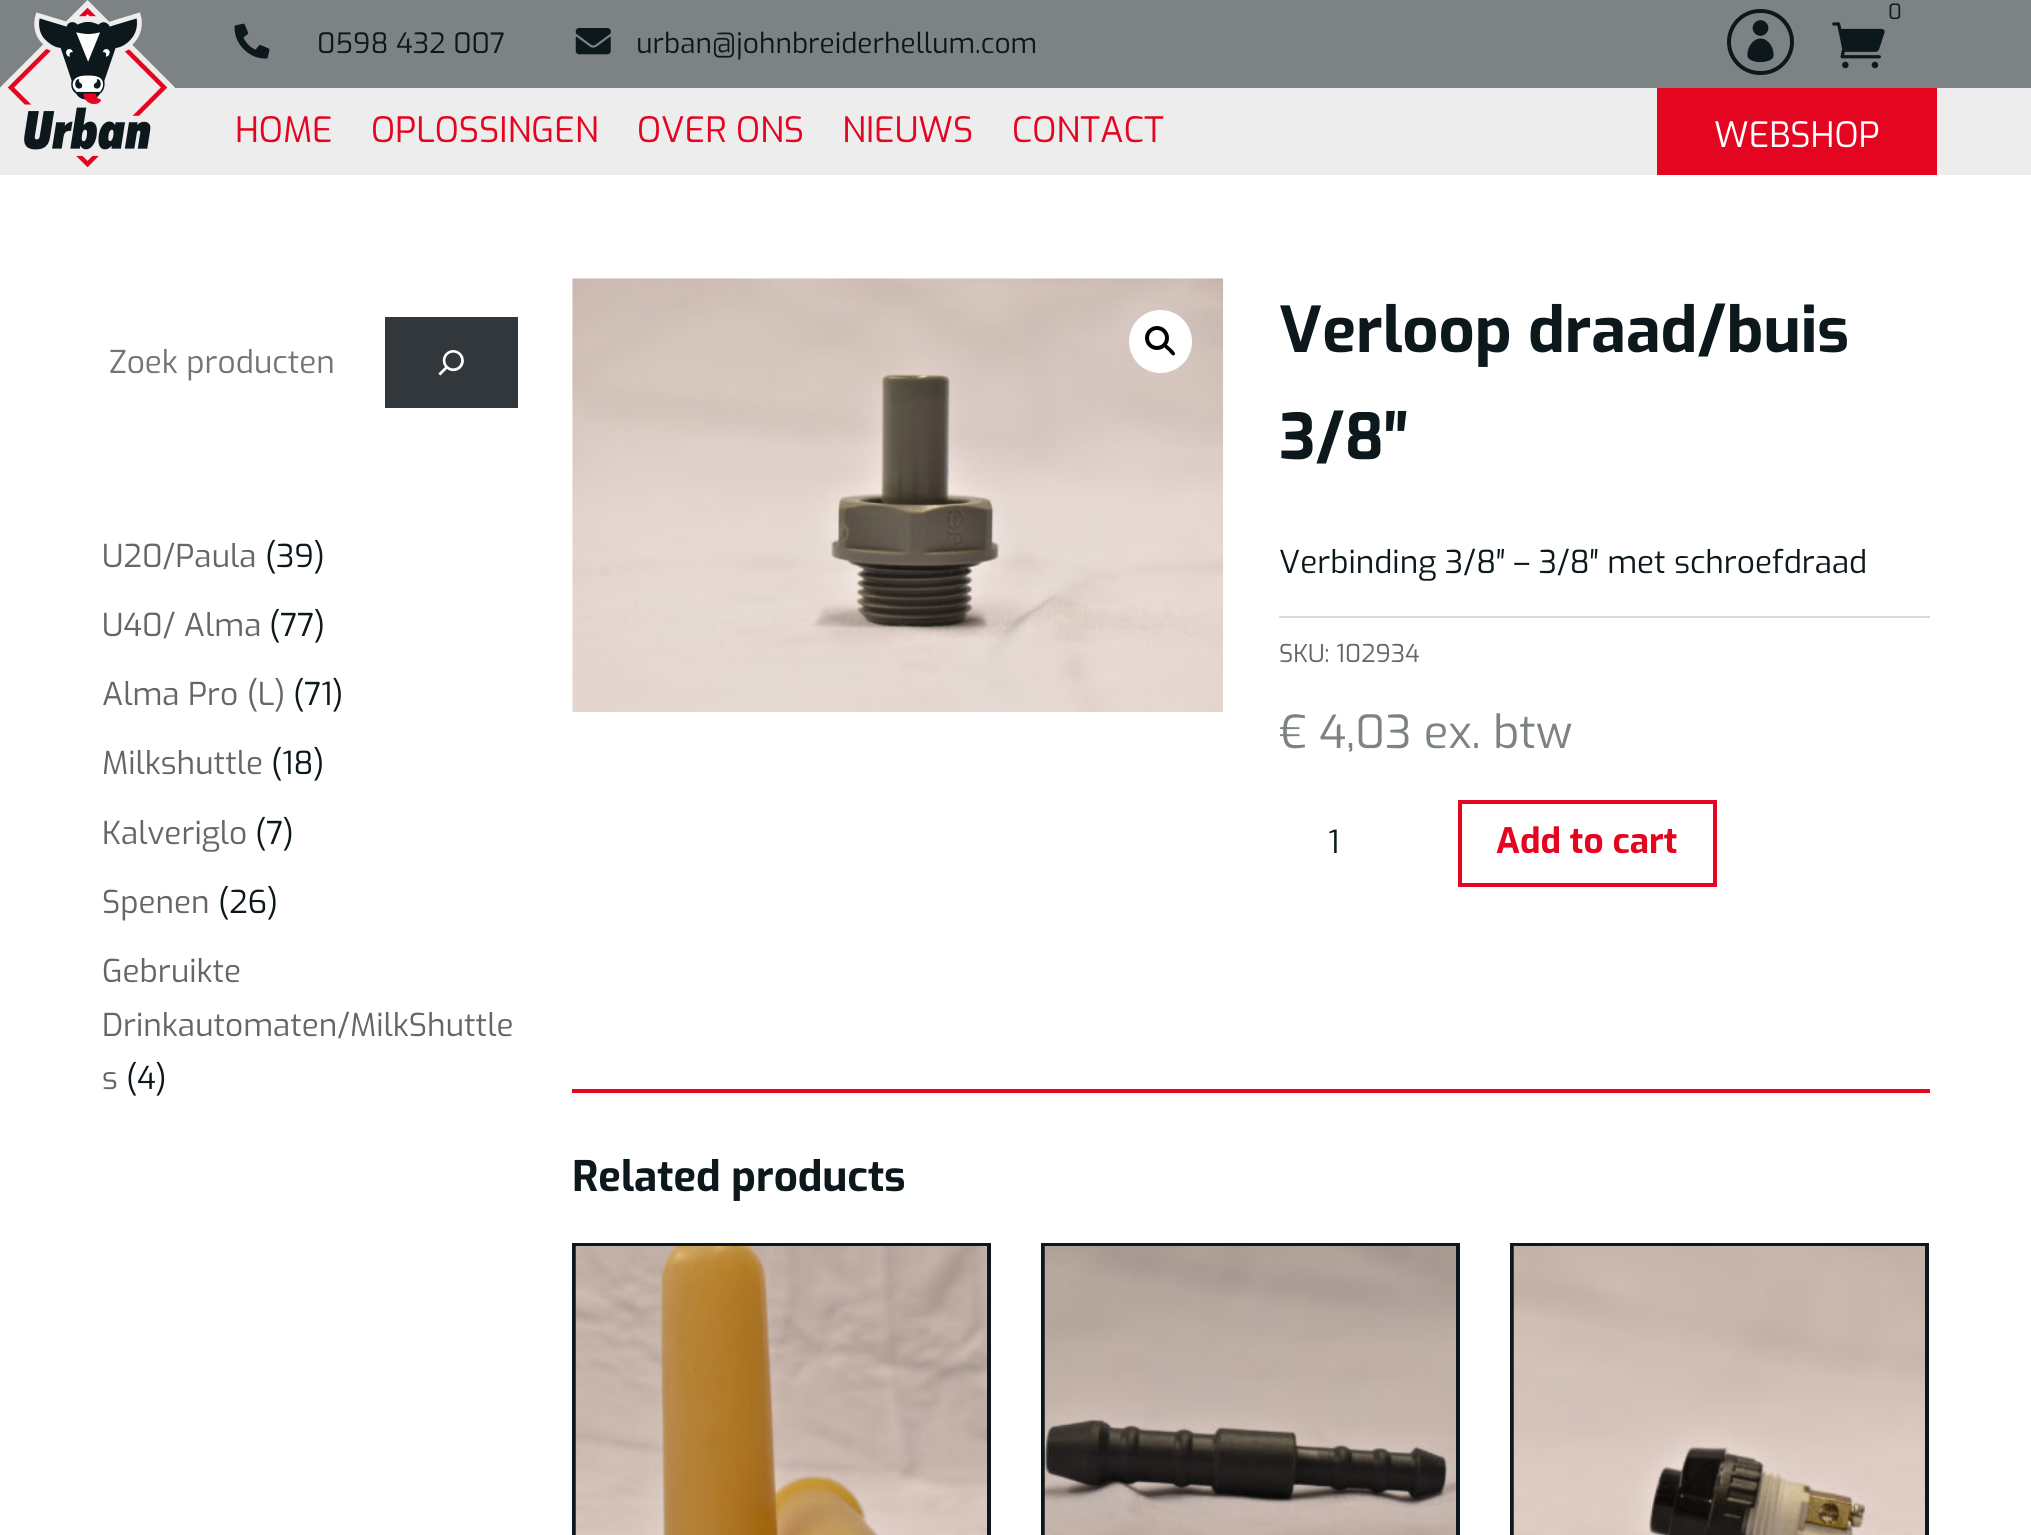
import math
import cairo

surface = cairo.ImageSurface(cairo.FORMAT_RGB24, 2031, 1535)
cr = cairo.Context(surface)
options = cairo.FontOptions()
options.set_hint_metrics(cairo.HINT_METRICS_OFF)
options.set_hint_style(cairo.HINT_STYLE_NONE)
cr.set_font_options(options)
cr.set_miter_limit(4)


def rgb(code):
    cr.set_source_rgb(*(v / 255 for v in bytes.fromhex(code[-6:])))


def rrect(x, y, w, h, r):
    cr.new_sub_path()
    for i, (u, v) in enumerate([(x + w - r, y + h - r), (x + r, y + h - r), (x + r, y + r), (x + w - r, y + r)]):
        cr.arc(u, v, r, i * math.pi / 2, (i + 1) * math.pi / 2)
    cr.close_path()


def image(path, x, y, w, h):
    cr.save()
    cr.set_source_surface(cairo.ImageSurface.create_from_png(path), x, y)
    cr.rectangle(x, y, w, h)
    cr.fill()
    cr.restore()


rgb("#ffffff")
cr.paint()
rgb("#7d8385")
cr.rectangle(0, 0, 2031, 88)
cr.fill()
rgb("#ededed")
cr.rectangle(0, 88, 2031, 87)
cr.fill()
image("img/1.png", 0, 0, 175, 168)
rrect(1729, 11, 63, 62, 31)
rgb("#0d181c")
cr.set_line_width(4)
cr.stroke()
image("img/2.png", 1747, 20, 27, 43)
image("img/3.png", 1832, 22, 53, 47)
image("img/4.png", 234, 23, 36, 36)
image("img/5.png", 575, 28, 36, 27)
rgb("#e40521")
cr.rectangle(1657, 88, 280, 87)
cr.fill()
rgb("#32373c")
cr.rectangle(385, 317, 133, 91)
cr.fill()
image("img/6.png", 438, 350, 26, 26)
image("img/7.png", 572, 278, 652, 434)
rgb("#ffffff")
cr.arc(1160.5, 341.5, 31.5, 0, 2 * math.pi)
cr.fill()
cr.arc(1157, 338, 10, 0, 2 * math.pi)
rgb("#000000")
cr.stroke()
cr.new_path()
cr.move_to(1164.5, 345)
cr.curve_to(1166.5, 343, 1169.5, 347.5, 1171, 348.5)
cr.curve_to(1172, 349.5, 1176.5, 353, 1174.5, 355)
cr.curve_to(1172.5, 357, 1169.5, 352, 1168.5, 351)
cr.curve_to(1167.5, 350, 1162.5, 347, 1164.5, 345)
cr.close_path()
cr.fill()
rgb("#dadada")
cr.rectangle(1279, 616, 651, 2)
cr.fill()
cr.rectangle(1460, 802, 255, 83)
rgb("#e40521")
cr.stroke()
cr.rectangle(572, 1089, 1358, 4)
cr.fill()
cr.rectangle(574, 1245, 415, 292)
rgb("#0d181c")
cr.stroke()
image("img/8.png", 575, 1246, 412, 289)
cr.rectangle(1043, 1245, 415, 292)
cr.stroke()
image("img/9.png", 1044, 1246, 412, 289)
cr.rectangle(1512, 1245, 415, 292)
cr.stroke()
image("img/10.png", 1513, 1246, 412, 289)
cr.select_font_face("Exo")
cr.set_font_size(21)
cr.move_to(1888, 19)
cr.show_text("0")
cr.set_font_size(28)
cr.move_to(317, 53)
cr.show_text("0598 432 007")
cr.move_to(636, 53)
cr.show_text("urban@johnbreiderhellum.com")
cr.set_font_size(35)
rgb("#e40521")
for x, y, s in [
    (235, 142, "HOME"),
    (371, 142, "OPLOSSINGEN"),
    (637, 142, "OVER ONS"),
    (842, 142, "NIEUWS"),
    (1012, 142, "CONTACT"),
]:
    cr.move_to(x, y)
    cr.show_text(s)
rgb("#ffffff")
cr.move_to(1714, 147)
cr.show_text("WEBSHOP")
cr.set_font_size(31.5)
rgb("#757575")
cr.move_to(109, 373)
cr.show_text("Zoek producten")
rgb("#666666")
cr.move_to(102, 567)
cr.show_text("U20/Paula")
rgb("#0d181c")
cr.move_to(265, 567)
cr.show_text("(39)")
rgb("#666666")
cr.move_to(102, 636)
cr.show_text("U40/ Alma")
rgb("#0d181c")
cr.move_to(269, 636)
cr.show_text("(77)")
rgb("#666666")
cr.move_to(102, 705)
cr.show_text("Alma Pro (L)")
rgb("#0d181c")
cr.move_to(293, 705)
cr.show_text("(71)")
rgb("#666666")
cr.move_to(102, 774)
cr.show_text("Milkshuttle")
rgb("#0d181c")
cr.move_to(271, 774)
cr.show_text("(18)")
rgb("#666666")
cr.move_to(102, 844)
cr.show_text("Kalveriglo")
rgb("#0d181c")
cr.move_to(255, 844)
cr.show_text("(7)")
rgb("#666666")
cr.move_to(102, 913)
cr.show_text("Spenen")
rgb("#0d181c")
cr.move_to(218, 913)
cr.show_text("(26)")
rgb("#666666")
for x, y, s in [
    (102, 982, "Gebruikte"),
    (102, 1036, "Drinkautomaten/MilkShuttle"),
    (102, 1089, "s"),
]:
    cr.move_to(x, y)
    cr.show_text(s)
rgb("#0d181c")
cr.move_to(126, 1089)
cr.show_text("(4)")
cr.select_font_face("Exo", cairo.FONT_SLANT_NORMAL, cairo.FONT_WEIGHT_BOLD)
cr.set_font_size(63)
cr.move_to(1279, 352)
cr.show_text("Verloop draad/buis")
cr.move_to(1279, 459)
cr.show_text("3/8″")
cr.select_font_face("Exo")
cr.set_font_size(31.5)
cr.move_to(1279, 573)
cr.show_text("Verbinding 3/8″ – 3/8″ met schroefdraad")
cr.set_font_size(24.5)
rgb("#666666")
cr.move_to(1279, 662)
cr.show_text("SKU: 102934")
cr.set_font_size(45.5)
rgb("#7d8385")
cr.move_to(1279, 748)
cr.show_text("€ 4,03 ex. btw")
cr.set_font_size(31.5)
rgb("#0d181c")
cr.move_to(1328, 853)
cr.show_text("1")
cr.select_font_face("Exo", cairo.FONT_SLANT_NORMAL, cairo.FONT_WEIGHT_BOLD)
cr.set_font_size(35)
rgb("#e40521")
cr.move_to(1496, 853)
cr.show_text("Add to cart")
cr.set_font_size(42)
rgb("#0d181c")
cr.move_to(572, 1191)
cr.show_text("Related products")
surface.write_to_png("page.png")
